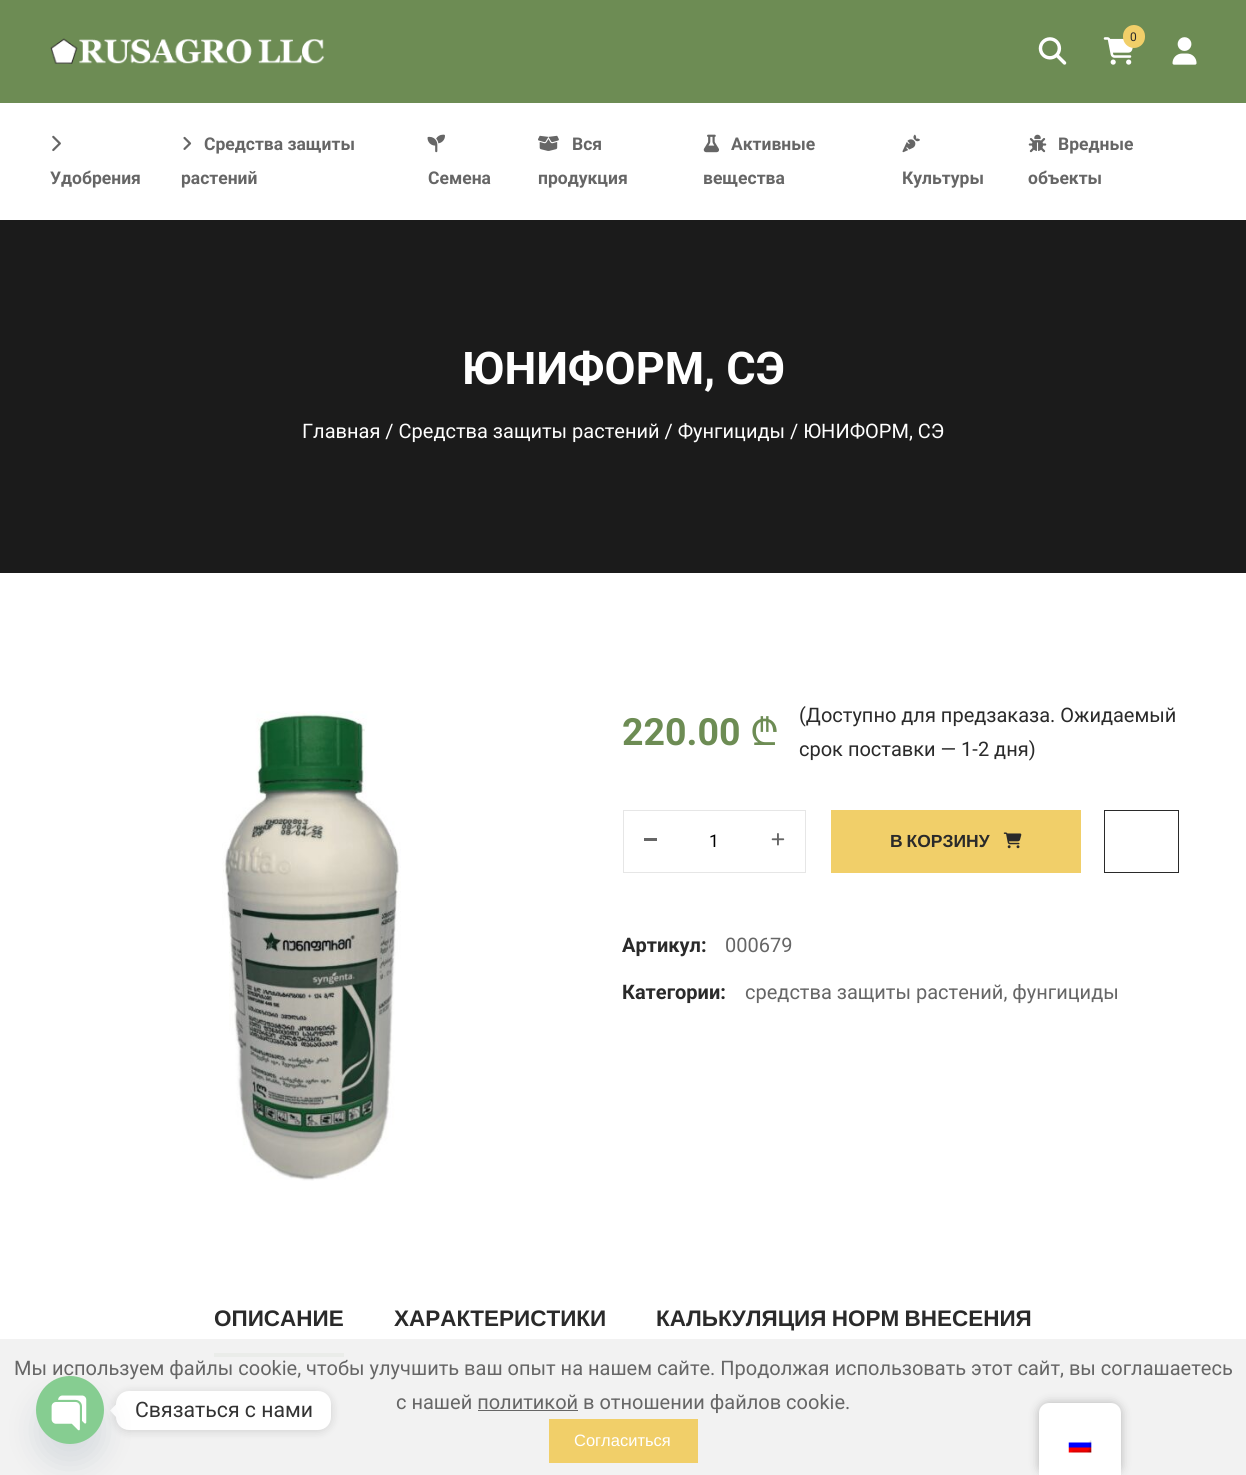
import math
import cairo

surface = cairo.ImageSurface(cairo.FORMAT_RGB24, 1246, 1475)
cr = cairo.Context(surface)
options = cairo.FontOptions()
options.set_hint_metrics(cairo.HINT_METRICS_OFF)
options.set_hint_style(cairo.HINT_STYLE_NONE)
cr.set_font_options(options)
cr.set_miter_limit(4)


def rgb(code):
    cr.set_source_rgb(*(v / 255 for v in bytes.fromhex(code[-6:])))


def tracked(x, y, s, letter, word):
    cr.move_to(x, y)
    for ch in s:
        cr.show_text(ch)
        cr.rel_move_to(letter + word * (ch == ' '), 0)


def rrect(x, y, w, h, r):
    cr.new_sub_path()
    for i, (u, v) in enumerate([(x + w - r, y + h - r), (x + r, y + h - r), (x + r, y + r), (x + w - r, y + r)]):
        cr.arc(u, v, r, i * math.pi / 2, (i + 1) * math.pi / 2)
    cr.close_path()


def soft_shadow(x, y, w, h, r, blur, alpha):
    cr.push_group_with_content(cairo.CONTENT_ALPHA)
    cr.set_operator(cairo.OPERATOR_SOURCE)
    for i in range(15, -16, -2):
        e = blur * i / 6
        if min(w, h) + 2 * e > 0:
            cr.set_source_rgba(0, 0, 0, alpha * math.erfc((i - 1) / 8.5) / 2)
            rrect(x - e, y - e, w + 2 * e, h + 2 * e, max(0, min(r + e + blur * .6, min(w, h) / 2 + e)))
            cr.fill()
    cr.mask(cr.pop_group())


def image(path, x, y, w, h):
    cr.save()
    cr.set_source_surface(cairo.ImageSurface.create_from_png(path), x, y)
    cr.rectangle(x, y, w, h)
    cr.fill()
    cr.restore()


rgb("#ffffff")
cr.paint()
rgb("#f2f2f2")
cr.rectangle(0, 1339, 1246, 136)
cr.fill()
rgb("#6d8c54")
cr.rectangle(0, 0, 1246, 103)
cr.fill()
image("img/1.png", 1038, 37, 29, 28)
image("img/2.png", 1103, 37, 30, 28)
rgb("#f1cf69")
rrect(1123, 25, 22, 23, 11)
cr.fill()
image("img/3.png", 1172, 37, 25, 28)
image("img/4.png", 50, 38, 275, 26)
image("img/5.png", 52, 135, 9, 17)
image("img/6.png", 183, 136, 9, 14)
image("img/7.png", 427, 134, 18, 19)
image("img/8.png", 538, 135, 21, 16)
image("img/9.png", 703, 134, 16, 19)
image("img/10.png", 902, 134, 18, 19)
image("img/11.png", 1028, 134, 19, 19)
rgb("#1b1b1b")
cr.rectangle(0, 220, 1246, 353)
cr.fill()
image("img/12.png", 222, 711, 179, 470)
cr.rectangle(623.5, 810.5, 182, 62)
rgb("#e6e6e6")
cr.set_line_width(1)
cr.stroke()
rgb("#666666")
cr.rectangle(644, 838, 13, 3)
cr.fill()
image("img/13.png", 771, 833, 14, 13)
rgb("#f1cf69")
cr.rectangle(831, 810, 250, 63)
cr.fill()
image("img/14.png", 1003, 832, 19, 17)
cr.rectangle(1104.5, 810.5, 74, 62)
rgb("#2a2a2a")
cr.stroke()
rgb("#eaece9")
cr.rectangle(214, 1353, 130, 4)
cr.fill()
rgb("#000000")
soft_shadow(1039, 1403, 82, 72, 10, 5, 0.25)
rgb("#ffffff")
cr.new_path()
cr.move_to(1049, 1403)
cr.line_to(1111, 1403)
cr.curve_to(1116.5, 1403, 1121, 1407.5, 1121, 1413)
cr.line_to(1121, 1475)
cr.line_to(1039, 1475)
cr.line_to(1039, 1413)
cr.curve_to(1039, 1407.5, 1043.5, 1403, 1049, 1403)
cr.close_path()
cr.fill()
image("img/15.png", 1068, 1440, 24, 13)
rgb("#666666")
cr.rectangle(478, 1410, 100, 1)
cr.fill()
rgb("#f1cf69")
cr.rectangle(549, 1419, 149, 44)
cr.fill()
rgb("#000000")
soft_shadow(116, 1393, 215, 38, 13, 5, 0.15)
rgb("#ffffff")
rrect(116, 1391, 215, 39, 13)
cr.fill()
cr.new_path()
cr.move_to(116, 1404.5)
cr.line_to(116, 1417)
cr.line_to(110, 1410.5)
cr.close_path()
cr.fill()
rgb("#49687e")
soft_shadow(36, 1396, 68, 68, 34, 15, 0.16)
cr.select_font_face("Roboto")
cr.set_font_size(12)
rgb("#2a2a2a")
cr.move_to(1130, 41)
cr.show_text("0")
cr.select_font_face("Roboto", cairo.FONT_SLANT_NORMAL, cairo.FONT_WEIGHT_BOLD)
cr.set_font_size(17.5)
rgb("#666666")
for x, y, s in [
    (50, 184, "Удобрения"),
    (204, 150, "Средства защиты"),
    (181, 184, "растений"),
    (428, 184, "Семена"),
    (572, 150, "Вся"),
    (538, 184, "продукция"),
    (731, 150, "Активные"),
    (703, 184, "вещества"),
    (902, 184, "Культуры"),
    (1058, 150, "Вредные"),
    (1028, 184, "объекты"),
]:
    cr.move_to(x, y)
    cr.show_text(s)
cr.set_font_size(45)
rgb("#ffffff")
cr.move_to(462, 384)
cr.show_text("ЮНИФОРМ, СЭ")
cr.select_font_face("Roboto")
cr.set_font_size(20)
cr.move_to(302, 438)
cr.show_text("Главная / Средства защиты растений / Фунгициды / ЮНИФОРМ, СЭ")
cr.select_font_face("Roboto", cairo.FONT_SLANT_NORMAL, cairo.FONT_WEIGHT_BOLD)
cr.set_font_size(37.5)
rgb("#6d8c54")
cr.move_to(622, 745)
cr.show_text("220.00")
cr.select_font_face("Noto Sans")
cr.move_to(750, 745)
cr.show_text("₾")
cr.select_font_face("Roboto")
cr.set_font_size(20)
rgb("#2a2a2a")
cr.move_to(799, 722)
cr.show_text("(Доступно для предзаказа. Ожидаемый")
cr.move_to(799, 756)
cr.show_text("срок поставки — 1-2 дня)")
cr.set_font_size(17.5)
rgb("#000000")
cr.move_to(709, 847)
cr.show_text("1")
cr.select_font_face("Liberation Sans", cairo.FONT_SLANT_NORMAL, cairo.FONT_WEIGHT_BOLD)
rgb("#2a2a2a")
tracked(890, 847, "В КОРЗИНУ", 0, -1)
cr.select_font_face("Roboto", cairo.FONT_SLANT_NORMAL, cairo.FONT_WEIGHT_BOLD)
cr.set_font_size(20)
cr.move_to(622, 952)
cr.show_text("Артикул:")
cr.select_font_face("Roboto")
rgb("#666666")
cr.move_to(725, 952)
cr.show_text("000679")
cr.select_font_face("Roboto", cairo.FONT_SLANT_NORMAL, cairo.FONT_WEIGHT_BOLD)
rgb("#2a2a2a")
cr.move_to(622, 999)
cr.show_text("Категории:")
cr.select_font_face("Roboto")
rgb("#666666")
cr.move_to(745, 999)
cr.show_text("средства защиты растений, фунгициды")
cr.select_font_face("Liberation Sans", cairo.FONT_SLANT_NORMAL, cairo.FONT_WEIGHT_BOLD)
cr.set_font_size(22.5)
rgb("#2a2a2a")
cr.move_to(214, 1326)
cr.show_text("ОПИСАНИЕ")
cr.move_to(394, 1326)
cr.show_text("ХАРАКТЕРИСТИКИ")
tracked(656, 1326, "КАЛЬКУЛЯЦИЯ НОРМ ВНЕСЕНИЯ", 0, -1)
cr.select_font_face("Roboto")
cr.set_font_size(20)
rgb("#666666")
cr.move_to(14, 1375)
cr.show_text("Мы используем файлы cookie, чтобы улучшить ваш опыт на нашем сайте. Продолжая использовать этот сайт, вы соглашаетесь")
cr.move_to(396, 1409)
cr.show_text("с нашей политикой в отношении файлов cookie.")
cr.select_font_face("Liberation Sans")
cr.set_font_size(16.5)
rgb("#ffffff")
cr.move_to(574, 1446)
cr.show_text("Согласиться")
image("img/16.png", 36, 1376, 68, 68)
cr.select_font_face("Roboto")
cr.set_font_size(21.25)
rgb("#333333")
cr.move_to(135, 1417)
cr.show_text("Связаться с нами")
surface.write_to_png("page.png")
